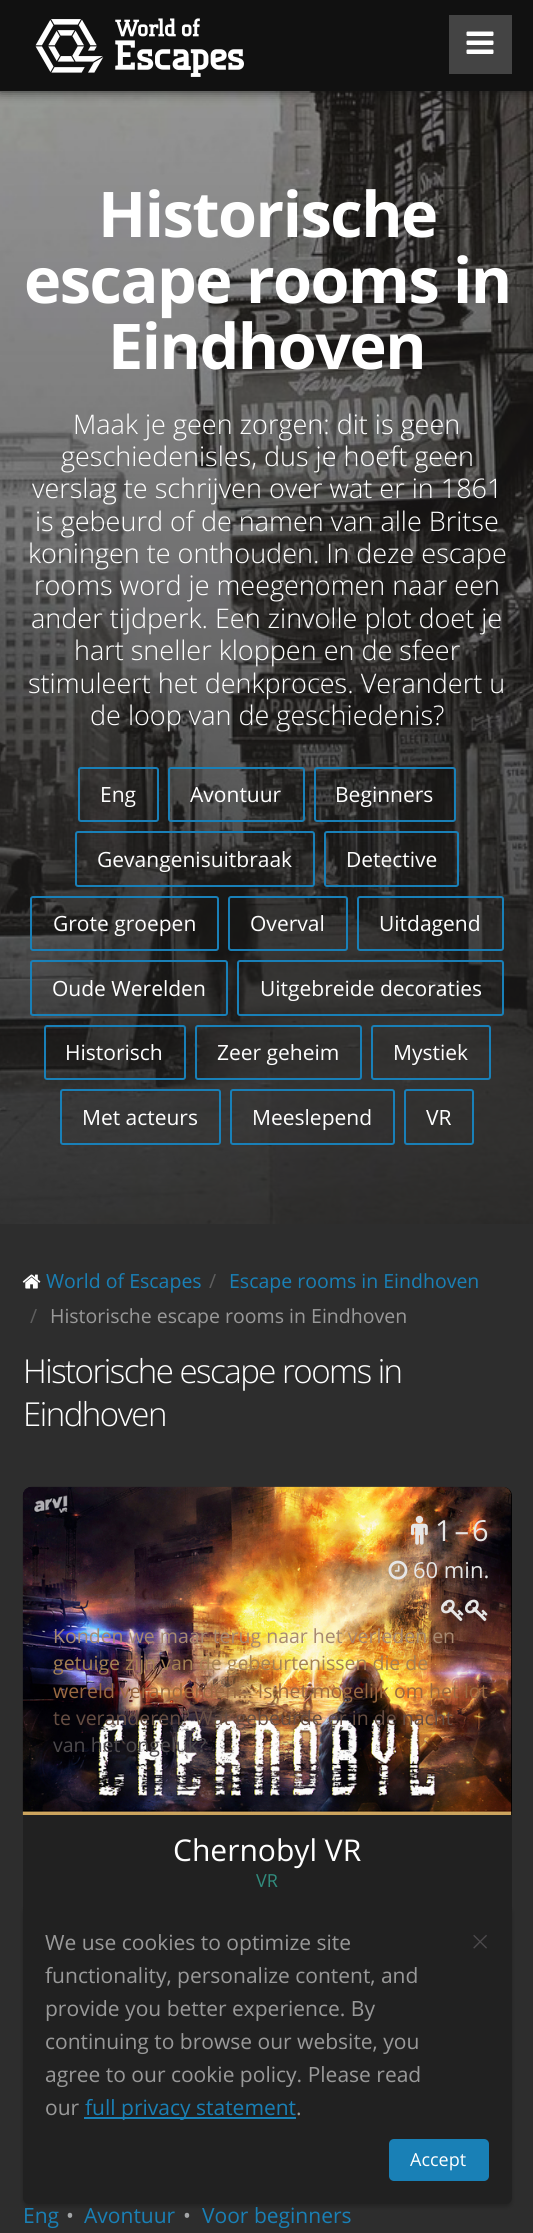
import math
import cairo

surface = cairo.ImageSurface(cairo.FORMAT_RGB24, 533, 2233)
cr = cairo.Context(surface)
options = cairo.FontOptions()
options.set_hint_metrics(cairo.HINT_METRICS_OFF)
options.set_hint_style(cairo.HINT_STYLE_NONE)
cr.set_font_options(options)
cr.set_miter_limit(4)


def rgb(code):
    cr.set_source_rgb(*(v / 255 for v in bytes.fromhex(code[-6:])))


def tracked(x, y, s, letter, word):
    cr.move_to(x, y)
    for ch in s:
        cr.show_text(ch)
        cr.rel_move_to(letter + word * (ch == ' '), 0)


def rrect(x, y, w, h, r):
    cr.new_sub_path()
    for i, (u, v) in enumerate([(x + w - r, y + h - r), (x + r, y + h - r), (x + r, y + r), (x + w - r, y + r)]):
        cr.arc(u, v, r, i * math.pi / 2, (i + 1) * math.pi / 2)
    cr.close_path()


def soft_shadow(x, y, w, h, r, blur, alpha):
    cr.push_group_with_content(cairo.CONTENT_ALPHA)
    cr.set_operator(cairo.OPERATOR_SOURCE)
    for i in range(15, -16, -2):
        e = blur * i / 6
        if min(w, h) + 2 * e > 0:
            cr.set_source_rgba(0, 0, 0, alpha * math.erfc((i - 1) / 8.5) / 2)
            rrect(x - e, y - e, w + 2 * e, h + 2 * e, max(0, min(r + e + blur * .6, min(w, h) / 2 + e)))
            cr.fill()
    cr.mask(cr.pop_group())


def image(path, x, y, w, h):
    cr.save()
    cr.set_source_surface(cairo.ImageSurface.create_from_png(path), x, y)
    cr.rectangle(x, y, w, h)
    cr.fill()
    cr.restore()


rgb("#2d2d2d")
cr.paint()
image("img/4.png", 0, 91, 533, 1133)
image("img/3.png", 0, 91, 533, 1)
rgb("#111111")
soft_shadow(0, 0, 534, 90, 0, 6, 1)
rgb("#111111")
cr.rectangle(0, 0, 533, 91)
cr.fill()
image("img/1.png", 35, 18, 209, 59)
rgb("#444444")
cr.rectangle(449, 15, 63, 59)
cr.fill()
image("img/2.png", 466, 31, 28, 23)
rrect(79, 768, 79, 53, 2)
rgb("#1980b8")
cr.stroke()
rrect(169, 768, 135, 53, 2)
cr.stroke()
rrect(315, 768, 140, 53, 2)
cr.stroke()
rrect(76, 832, 238, 54, 2)
cr.stroke()
rrect(325, 832, 133, 54, 2)
cr.stroke()
rrect(31, 897, 187, 53, 2)
cr.stroke()
rrect(229, 897, 118, 53, 2)
cr.stroke()
rrect(358, 897, 145, 53, 2)
cr.stroke()
rrect(31, 961, 196, 54, 2)
cr.stroke()
rrect(238, 961, 265, 54, 2)
cr.stroke()
rrect(45, 1026, 140, 53, 2)
cr.stroke()
rrect(196, 1026, 165, 53, 2)
cr.stroke()
rrect(372, 1026, 118, 53, 2)
cr.stroke()
rrect(61, 1090, 159, 54, 2)
cr.stroke()
rrect(231, 1090, 163, 54, 2)
cr.stroke()
rrect(405, 1090, 68, 54, 2)
cr.stroke()
image("img/5.png", 22, 1274, 19, 15)
rgb("#000000")
cr.new_path()
cr.move_to(32, 1487)
cr.line_to(503, 1487)
cr.curve_to(508, 1487, 512, 1491, 512, 1496)
cr.line_to(512, 1815)
cr.line_to(23, 1815)
cr.line_to(23, 1496)
cr.curve_to(23, 1491, 27, 1487, 32, 1487)
cr.close_path()
cr.fill()
image("img/6.png", 22, 1486, 490, 329)
image("img/7.png", 411, 1515, 17, 30)
image("img/8.png", 388, 1560, 20, 20)
image("img/9.png", 441, 1599, 23, 22)
image("img/10.png", 465, 1599, 23, 22)
rgb("#212121")
cr.rectangle(23, 1815, 489, 95)
cr.fill()
rgb("#000000")
soft_shadow(23, 1907, 489, 300, 6, 2, 0.2)
rgb("#212121")
rrect(23, 1904, 489, 300, 6)
cr.fill()
rgb("#1980b6")
cr.rectangle(84, 2117, 212, 2)
cr.fill()
rrect(389, 2139, 100, 42, 5)
cr.fill()
cr.select_font_face("Open Sans", cairo.FONT_SLANT_NORMAL, cairo.FONT_WEIGHT_BOLD)
cr.set_font_size(63)
rgb("#ffffff")
for x, y, s in [
    (98, 237, "Historische"),
    (24, 303, "escape rooms in"),
    (108, 369, "Eindhoven"),
]:
    tracked(x, y, s, -1.5, 0)
cr.select_font_face("Open Sans Light")
cr.set_font_size(27)
for x, y, s in [
    (73, 434, "Maak je geen zorgen: dit is geen"),
    (61, 466, "geschiedenisles, dus je hoeft geen"),
    (32, 498, "verslag te schrijven over wat er in 1861"),
    (35, 531, "is gebeurd of de namen van alle Britse"),
    (28, 563, "koningen te onthouden. In deze escape"),
    (34, 595, "rooms word je meegenomen naar een"),
    (31, 628, "ander tijdperk. Een zinvolle plot doet je"),
    (74, 660, "hart sneller kloppen en de sfeer"),
    (28, 693, "stimuleert het denkproces. Verandert u"),
    (90, 725, "de loop van de geschiedenis?"),
]:
    cr.move_to(x, y)
    cr.show_text(s)
cr.select_font_face("Open Sans")
cr.set_font_size(21)
for x, y, s in [
    (100, 802, "Eng"),
    (190, 802, "Avontuur"),
    (335, 802, "Beginners"),
    (97, 867, "Gevangenisuitbraak"),
    (346, 867, "Detective"),
    (53, 931, "Grote groepen"),
    (250, 931, "Overval"),
    (379, 931, "Uitdagend"),
    (52, 996, "Oude Werelden"),
    (260, 996, "Uitgebreide decoraties"),
    (65, 1060, "Historisch"),
    (217, 1060, "Zeer geheim"),
    (393, 1060, "Mystiek"),
    (82, 1125, "Met acteurs"),
    (252, 1125, "Meeslepend"),
    (426, 1125, "VR"),
]:
    cr.move_to(x, y)
    cr.show_text(s)
cr.set_font_size(19.5)
rgb("#1980b6")
cr.move_to(46, 1288)
cr.show_text("World of Escapes")
rgb("#5e5e5e")
cr.move_to(209, 1288)
cr.show_text("/")
rgb("#1980b6")
cr.move_to(229, 1288)
cr.show_text("Escape rooms in Eindhoven")
rgb("#5e5e5e")
cr.move_to(30, 1323)
cr.show_text("/")
rgb("#999999")
cr.move_to(50, 1323)
cr.show_text("Historische escape rooms in Eindhoven")
cr.select_font_face("Open Sans Light")
cr.set_font_size(33)
rgb("#ffffff")
tracked(23, 1383, "Historische escape rooms in", -1.5, 0)
tracked(23, 1426, "Eindhoven", -1.5, 0)
cr.select_font_face("Open Sans")
cr.set_font_size(29)
rgb("#e6e6e6")
cr.move_to(435, 1541)
cr.show_text("1 – 6")
cr.set_font_size(22)
cr.move_to(413, 1578)
cr.show_text("60 min.")
cr.set_font_size(19.5)
rgb("#a88970")
cr.move_to(53, 1643)
cr.show_text("Konden we maar terug naar het verleden en")
rgb("#a58153")
cr.move_to(53, 1670)
cr.show_text("getuige zijn van de gebeurtenissen die de")
rgb("#9a6941")
cr.move_to(53, 1698)
cr.show_text("wereld veranderden... Is het mogelijk om het lot")
rgb("#664e43")
cr.move_to(53, 1725)
cr.show_text("te veranderen? Wat gebeurde er in de nacht")
rgb("#4d4a4d")
cr.move_to(53, 1752)
cr.show_text("van het ongeluk?")
cr.set_font_size(30)
rgb("#ffffff")
cr.move_to(173, 1861)
cr.show_text("Chernobyl VR")
cr.set_font_size(18)
rgb("#318c7d")
cr.move_to(256, 1887)
cr.show_text("VR")
cr.set_font_size(21)
rgb("#1980b6")
cr.move_to(23, 2223)
cr.show_text("Eng")
rgb("#a4a6a8")
cr.move_to(66, 2223)
cr.show_text("•")
rgb("#1980b6")
cr.move_to(84, 2223)
cr.show_text("Avontuur")
rgb("#a4a6a8")
cr.move_to(183, 2223)
cr.show_text("•")
rgb("#1980b6")
cr.move_to(202, 2223)
cr.show_text("Voor beginners")
rgb("#999999")
for x, y, s in [
    (45, 1950, "We use cookies to optimize site"),
    (45, 1983, "functionality, personalize content, and"),
    (45, 2016, "provide you better experience. By"),
    (45, 2049, "continuing to browse our website, you"),
    (45, 2082, "agree to our cookie policy. Please read"),
    (45, 2115, "our"),
]:
    cr.move_to(x, y)
    cr.show_text(s)
rgb("#1980b6")
cr.move_to(85, 2115)
cr.show_text("full privacy statement")
rgb("#999999")
cr.move_to(296, 2115)
cr.show_text(".")
cr.select_font_face("Open Sans Light")
cr.set_font_size(32)
rgb("#4d4a4d")
cr.move_to(471, 1953)
cr.show_text("×")
cr.select_font_face("Open Sans")
cr.set_font_size(18)
rgb("#ffffff")
cr.move_to(410, 2166)
cr.show_text("Accept")
surface.write_to_png("page.png")
